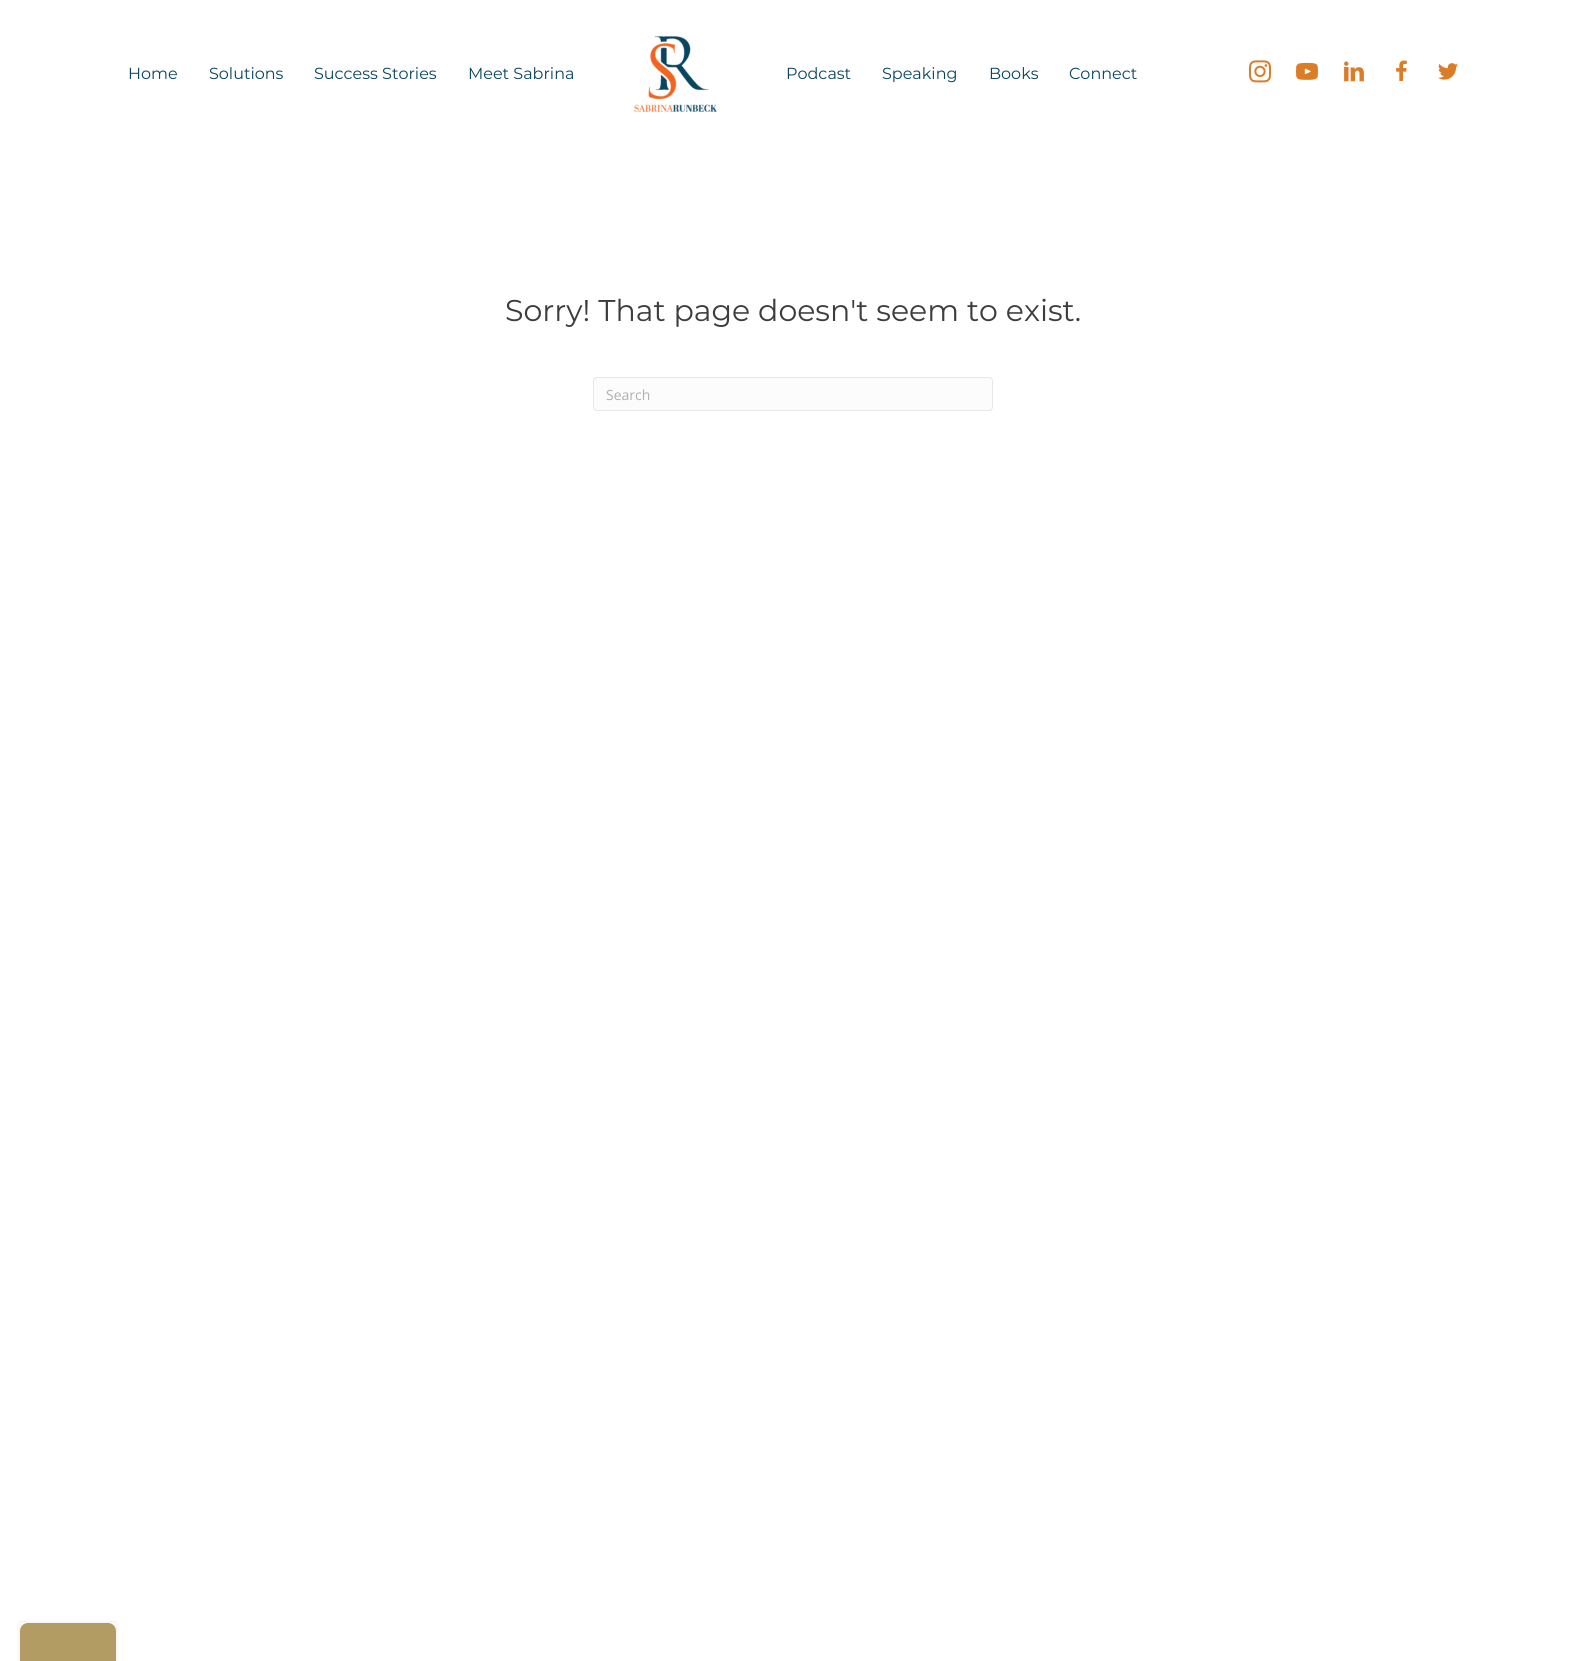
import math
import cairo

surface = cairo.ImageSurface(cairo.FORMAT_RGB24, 1586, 1661)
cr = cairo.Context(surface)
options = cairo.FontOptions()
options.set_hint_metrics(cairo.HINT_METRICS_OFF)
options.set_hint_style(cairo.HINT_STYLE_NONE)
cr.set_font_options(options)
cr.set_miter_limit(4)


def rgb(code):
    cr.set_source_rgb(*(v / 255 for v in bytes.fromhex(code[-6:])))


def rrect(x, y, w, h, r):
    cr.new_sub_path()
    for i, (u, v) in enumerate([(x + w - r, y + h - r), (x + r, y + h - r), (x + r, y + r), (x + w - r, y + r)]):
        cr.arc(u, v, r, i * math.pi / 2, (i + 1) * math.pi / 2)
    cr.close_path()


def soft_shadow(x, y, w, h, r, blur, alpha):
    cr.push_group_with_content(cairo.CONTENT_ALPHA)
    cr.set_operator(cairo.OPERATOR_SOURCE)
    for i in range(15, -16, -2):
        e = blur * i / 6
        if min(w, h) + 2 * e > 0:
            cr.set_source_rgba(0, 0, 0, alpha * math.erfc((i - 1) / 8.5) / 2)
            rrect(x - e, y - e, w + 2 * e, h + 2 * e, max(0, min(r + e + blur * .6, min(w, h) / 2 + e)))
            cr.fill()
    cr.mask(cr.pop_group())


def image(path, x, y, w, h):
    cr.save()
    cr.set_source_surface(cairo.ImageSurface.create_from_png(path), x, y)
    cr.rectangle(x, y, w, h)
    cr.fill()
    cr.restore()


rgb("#ffffff")
cr.paint()
image("img/1.png", 634, 36, 83, 76)
image("img/2.png", 1249, 60, 22, 23)
image("img/3.png", 1296, 62, 22, 18)
image("img/4.png", 1344, 61, 20, 21)
image("img/5.png", 1396, 60, 11, 21)
image("img/6.png", 1438, 63, 20, 17)
rgb("#fcfcfc")
rrect(593.5, 377.5, 399, 33, 3.5)
cr.fill_preserve()
rgb("#e6e6e6")
cr.set_line_width(1)
cr.stroke()
cr.save()
cr.set_fill_rule(cairo.FILL_RULE_EVEN_ODD)
cr.new_path()
cr.move_to(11, 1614)
cr.line_to(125, 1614)
cr.line_to(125, 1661)
cr.line_to(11, 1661)
cr.close_path()
cr.move_to(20, 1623)
cr.line_to(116, 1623)
cr.line_to(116, 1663)
cr.line_to(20, 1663)
cr.close_path()
cr.clip()
rgb("#000000")
soft_shadow(20, 1623, 96, 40, 0, 2.5, 0.1)
cr.restore()
rgb("#b29c63")
cr.new_path()
cr.move_to(28, 1623)
cr.line_to(108, 1623)
cr.curve_to(112.5, 1623, 116, 1626.5, 116, 1631)
cr.line_to(116, 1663)
cr.line_to(20, 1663)
cr.line_to(20, 1631)
cr.curve_to(20, 1626.5, 23.5, 1623, 28, 1623)
cr.close_path()
cr.fill()
cr.select_font_face("Montserrat Thin")
cr.set_font_size(16)
rgb("#094560")
for x, y, s in [
    (128, 79, "Home"),
    (209, 79, "Solutions"),
    (314, 79, "Success Stories"),
    (468, 79, "Meet Sabrina"),
    (786, 79, "Podcast"),
    (882, 79, "Speaking"),
    (989, 79, "Books"),
    (1069, 79, "Connect"),
]:
    cr.move_to(x, y)
    cr.show_text(s)
cr.set_font_size(30)
rgb("#3d3d3d")
cr.move_to(505, 321)
cr.show_text("Sorry! That page doesn't seem to exist.")
cr.select_font_face("Open Sans")
cr.set_font_size(14)
rgb("#b0b0b0")
cr.move_to(606, 400)
cr.show_text("Search")
surface.write_to_png("page.png")
